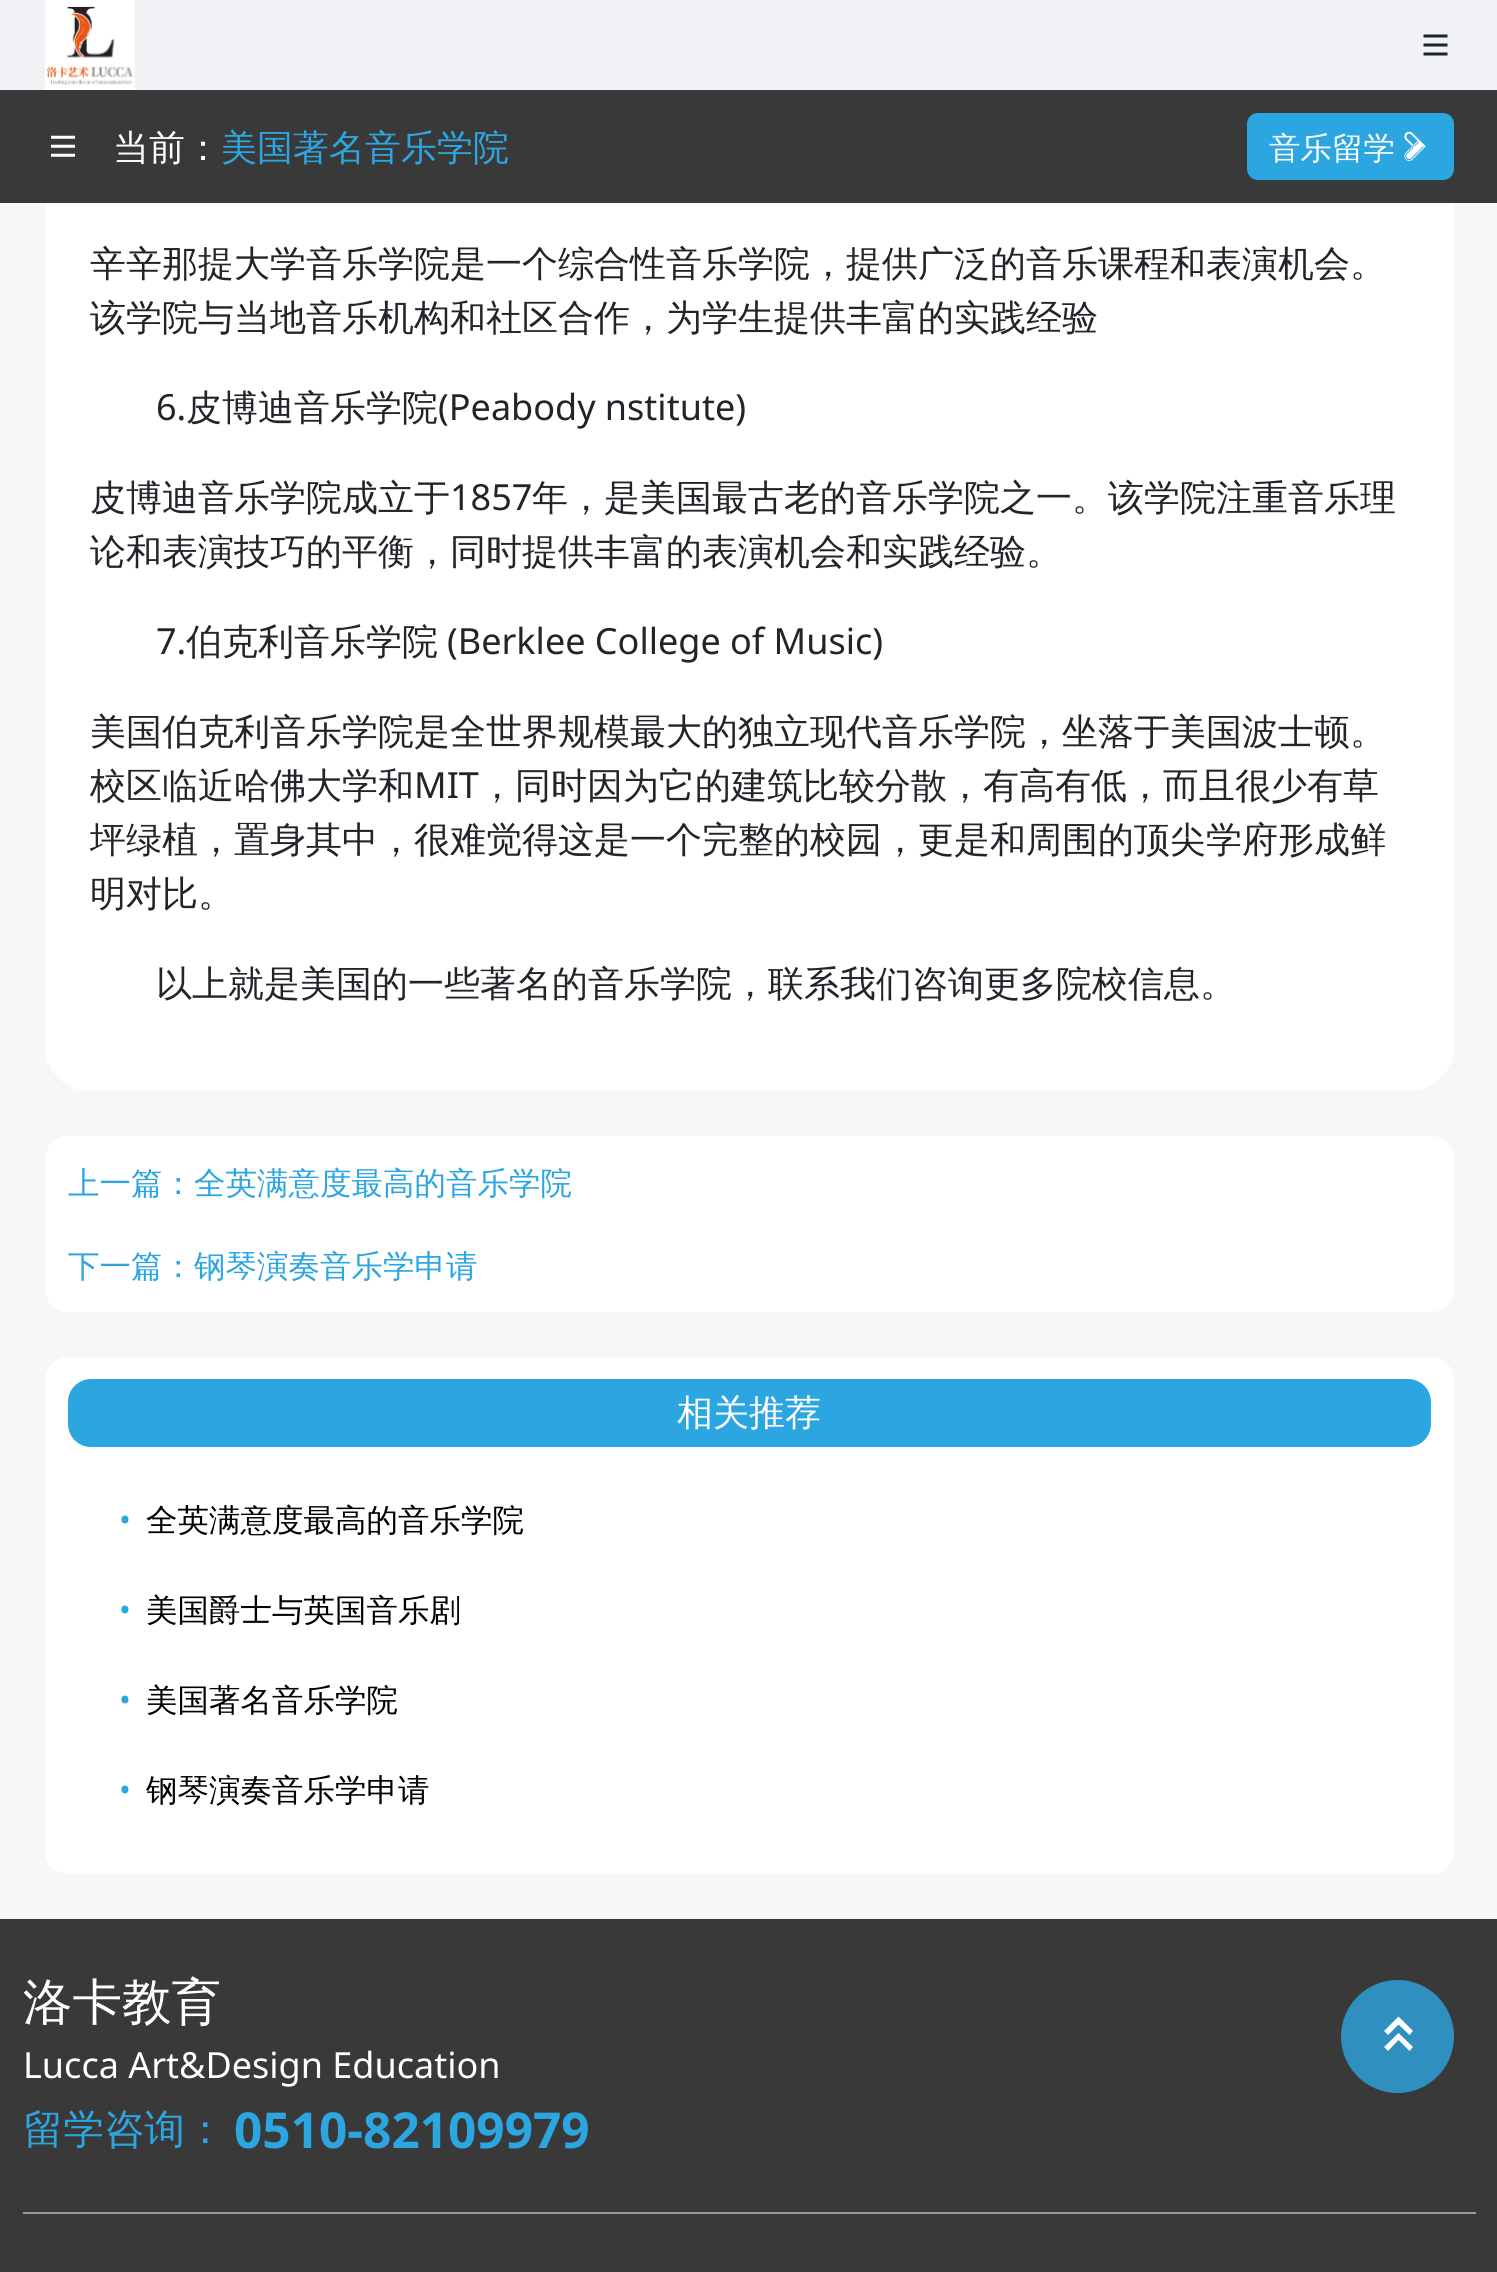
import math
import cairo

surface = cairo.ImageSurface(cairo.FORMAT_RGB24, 1497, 2272)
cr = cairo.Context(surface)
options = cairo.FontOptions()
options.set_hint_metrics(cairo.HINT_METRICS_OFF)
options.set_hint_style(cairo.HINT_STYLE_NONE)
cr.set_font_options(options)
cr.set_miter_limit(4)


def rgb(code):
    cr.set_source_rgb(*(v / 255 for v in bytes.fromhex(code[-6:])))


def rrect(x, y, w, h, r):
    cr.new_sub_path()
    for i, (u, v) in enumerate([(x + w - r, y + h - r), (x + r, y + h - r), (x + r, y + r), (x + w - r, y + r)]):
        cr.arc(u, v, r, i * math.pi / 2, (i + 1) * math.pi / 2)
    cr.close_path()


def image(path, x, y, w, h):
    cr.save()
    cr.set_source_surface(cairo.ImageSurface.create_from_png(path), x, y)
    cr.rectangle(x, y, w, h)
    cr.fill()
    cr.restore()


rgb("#f7f7f7")
cr.paint()
rgb("#ffffff")
rrect(45, -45, 1409, 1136, 45)
cr.fill()
rgb("#f0f2f5")
cr.rectangle(0, 0, 1497, 90)
cr.fill()
image("img/1.png", 45, 0, 90, 90)
image("img/2.png", 1423, 34, 25, 22)
rgb("#393939")
cr.rectangle(0, 90, 1497, 113)
cr.fill()
image("img/3.png", 51, 135, 24, 22)
rgb("#2ca6e0")
rrect(1247, 113, 207, 67, 11)
cr.fill()
image("img/4.png", 1404, 131, 22, 30)
rgb("#ffffff")
rrect(45, 1136, 1409, 176, 23)
cr.fill()
rrect(45, 1357, 1409, 517, 23)
cr.fill()
rgb("#2ca6e0")
rrect(68, 1379, 1363, 68, 23)
cr.fill()
rgb("#393939")
cr.rectangle(0, 1919, 1497, 353)
cr.fill()
rgb("#999999")
cr.rectangle(23, 2212, 1453, 2)
cr.fill()
rgb("#2f90bf")
cr.arc(1397.5, 2036.5, 56.5, 0, 2 * math.pi)
cr.fill()
rgb("#ffffff")
cr.new_path()
cr.move_to(1398.5, 2040)
cr.line_to(1388, 2051)
cr.line_to(1384, 2047)
cr.line_to(1398.5, 2033)
cr.line_to(1413, 2047)
cr.line_to(1409.5, 2051)
cr.close_path()
cr.move_to(1398.5, 2024.5)
cr.line_to(1388, 2035)
cr.line_to(1384, 2031)
cr.line_to(1398.5, 2016.5)
cr.line_to(1413, 2031)
cr.line_to(1409.5, 2035)
cr.close_path()
cr.fill()
cr.select_font_face("WenQuanYi Zen Hei Medium")
cr.set_font_size(36)
cr.move_to(113, 160)
cr.show_text("当前：")
rgb("#2ca6e0")
cr.move_to(221, 160)
cr.show_text("美国著名音乐学院")
cr.set_font_size(31.5)
rgb("#ffffff")
cr.move_to(1269, 159)
cr.show_text("音乐留学")
cr.set_font_size(36)
rgb("#212529")
cr.move_to(90, 276)
cr.show_text("辛辛那提大学音乐学院是一个综合性音乐学院，提供广泛的音乐课程和表演机会。")
cr.move_to(90, 330)
cr.show_text("该学院与当地音乐机构和社区合作，为学生提供丰富的实践经验")
cr.select_font_face("Noto Sans")
cr.move_to(156, 420)
cr.show_text("6.")
cr.select_font_face("WenQuanYi Zen Hei Medium")
cr.move_to(186, 420)
cr.show_text("皮博迪音乐学院")
cr.select_font_face("Noto Sans")
cr.move_to(438, 420)
cr.show_text("(Peabody nstitute)")
cr.select_font_face("WenQuanYi Zen Hei Medium")
cr.move_to(90, 510)
cr.show_text("皮博迪音乐学院成立于")
cr.select_font_face("Noto Sans")
cr.move_to(450, 510)
cr.show_text("1857")
cr.select_font_face("WenQuanYi Zen Hei Medium")
cr.move_to(532, 510)
cr.show_text("年，是美国最古老的音乐学院之一。该学院注重音乐理")
cr.move_to(90, 564)
cr.show_text("论和表演技巧的平衡，同时提供丰富的表演机会和实践经验。")
cr.select_font_face("Noto Sans")
cr.move_to(156, 654)
cr.show_text("7.")
cr.select_font_face("WenQuanYi Zen Hei Medium")
cr.move_to(186, 654)
cr.show_text("伯克利音乐学院")
cr.select_font_face("Noto Sans")
cr.move_to(447, 654)
cr.show_text("(Berklee College of Music)")
cr.select_font_face("WenQuanYi Zen Hei Medium")
cr.move_to(90, 744)
cr.show_text("美国伯克利音乐学院是全世界规模最大的独立现代音乐学院，坐落于美国波士顿。")
cr.move_to(90, 798)
cr.show_text("校区临近哈佛大学和")
cr.select_font_face("Noto Sans")
cr.move_to(414, 798)
cr.show_text("MIT")
cr.select_font_face("WenQuanYi Zen Hei Medium")
for x, y, s in [
    (479, 798, "，同时因为它的建筑比较分散，有高有低，而且很少有草"),
    (90, 852, "坪绿植，置身其中，很难觉得这是一个完整的校园，更是和周围的顶尖学府形成鲜"),
    (90, 906, "明对比。"),
    (156, 996, "以上就是美国的一些著名的音乐学院，联系我们咨询更多院校信息。"),
]:
    cr.move_to(x, y)
    cr.show_text(s)
cr.set_font_size(31.5)
rgb("#2ca6e0")
cr.move_to(68, 1194)
cr.show_text("上一篇：全英满意度最高的音乐学院")
cr.move_to(68, 1277)
cr.show_text("下一篇：钢琴演奏音乐学申请")
cr.set_font_size(36)
rgb("#ffffff")
cr.move_to(677, 1425)
cr.show_text("相关推荐")
cr.select_font_face("Noto Sans")
cr.set_font_size(31.5)
rgb("#2ca6e0")
cr.move_to(119, 1531)
cr.show_text("•")
cr.select_font_face("WenQuanYi Zen Hei Medium")
rgb("#000000")
cr.move_to(146, 1531)
cr.show_text("全英满意度最高的音乐学院")
cr.select_font_face("Noto Sans")
rgb("#2ca6e0")
cr.move_to(119, 1621)
cr.show_text("•")
cr.select_font_face("WenQuanYi Zen Hei Medium")
rgb("#000000")
cr.move_to(146, 1621)
cr.show_text("美国爵士与英国音乐剧")
cr.select_font_face("Noto Sans")
rgb("#2ca6e0")
cr.move_to(119, 1711)
cr.show_text("•")
cr.select_font_face("WenQuanYi Zen Hei Medium")
rgb("#000000")
cr.move_to(146, 1711)
cr.show_text("美国著名音乐学院")
cr.select_font_face("Noto Sans")
rgb("#2ca6e0")
cr.move_to(119, 1801)
cr.show_text("•")
cr.select_font_face("WenQuanYi Zen Hei Medium")
rgb("#000000")
cr.move_to(146, 1801)
cr.show_text("钢琴演奏音乐学申请")
cr.set_font_size(49.5)
rgb("#ffffff")
cr.move_to(23, 2019)
cr.show_text("洛卡教育")
cr.select_font_face("Noto Sans")
cr.set_font_size(36)
cr.move_to(23, 2078)
cr.show_text("Lucca Art&Design Education")
cr.select_font_face("WenQuanYi Zen Hei Medium")
cr.set_font_size(40.5)
rgb("#2ca6e0")
cr.move_to(23, 2143)
cr.show_text("留学咨询：")
cr.select_font_face("Noto Sans", cairo.FONT_SLANT_NORMAL, cairo.FONT_WEIGHT_BOLD)
cr.set_font_size(49.5)
cr.move_to(234, 2148)
cr.show_text("0510-82109979")
surface.write_to_png("page.png")
